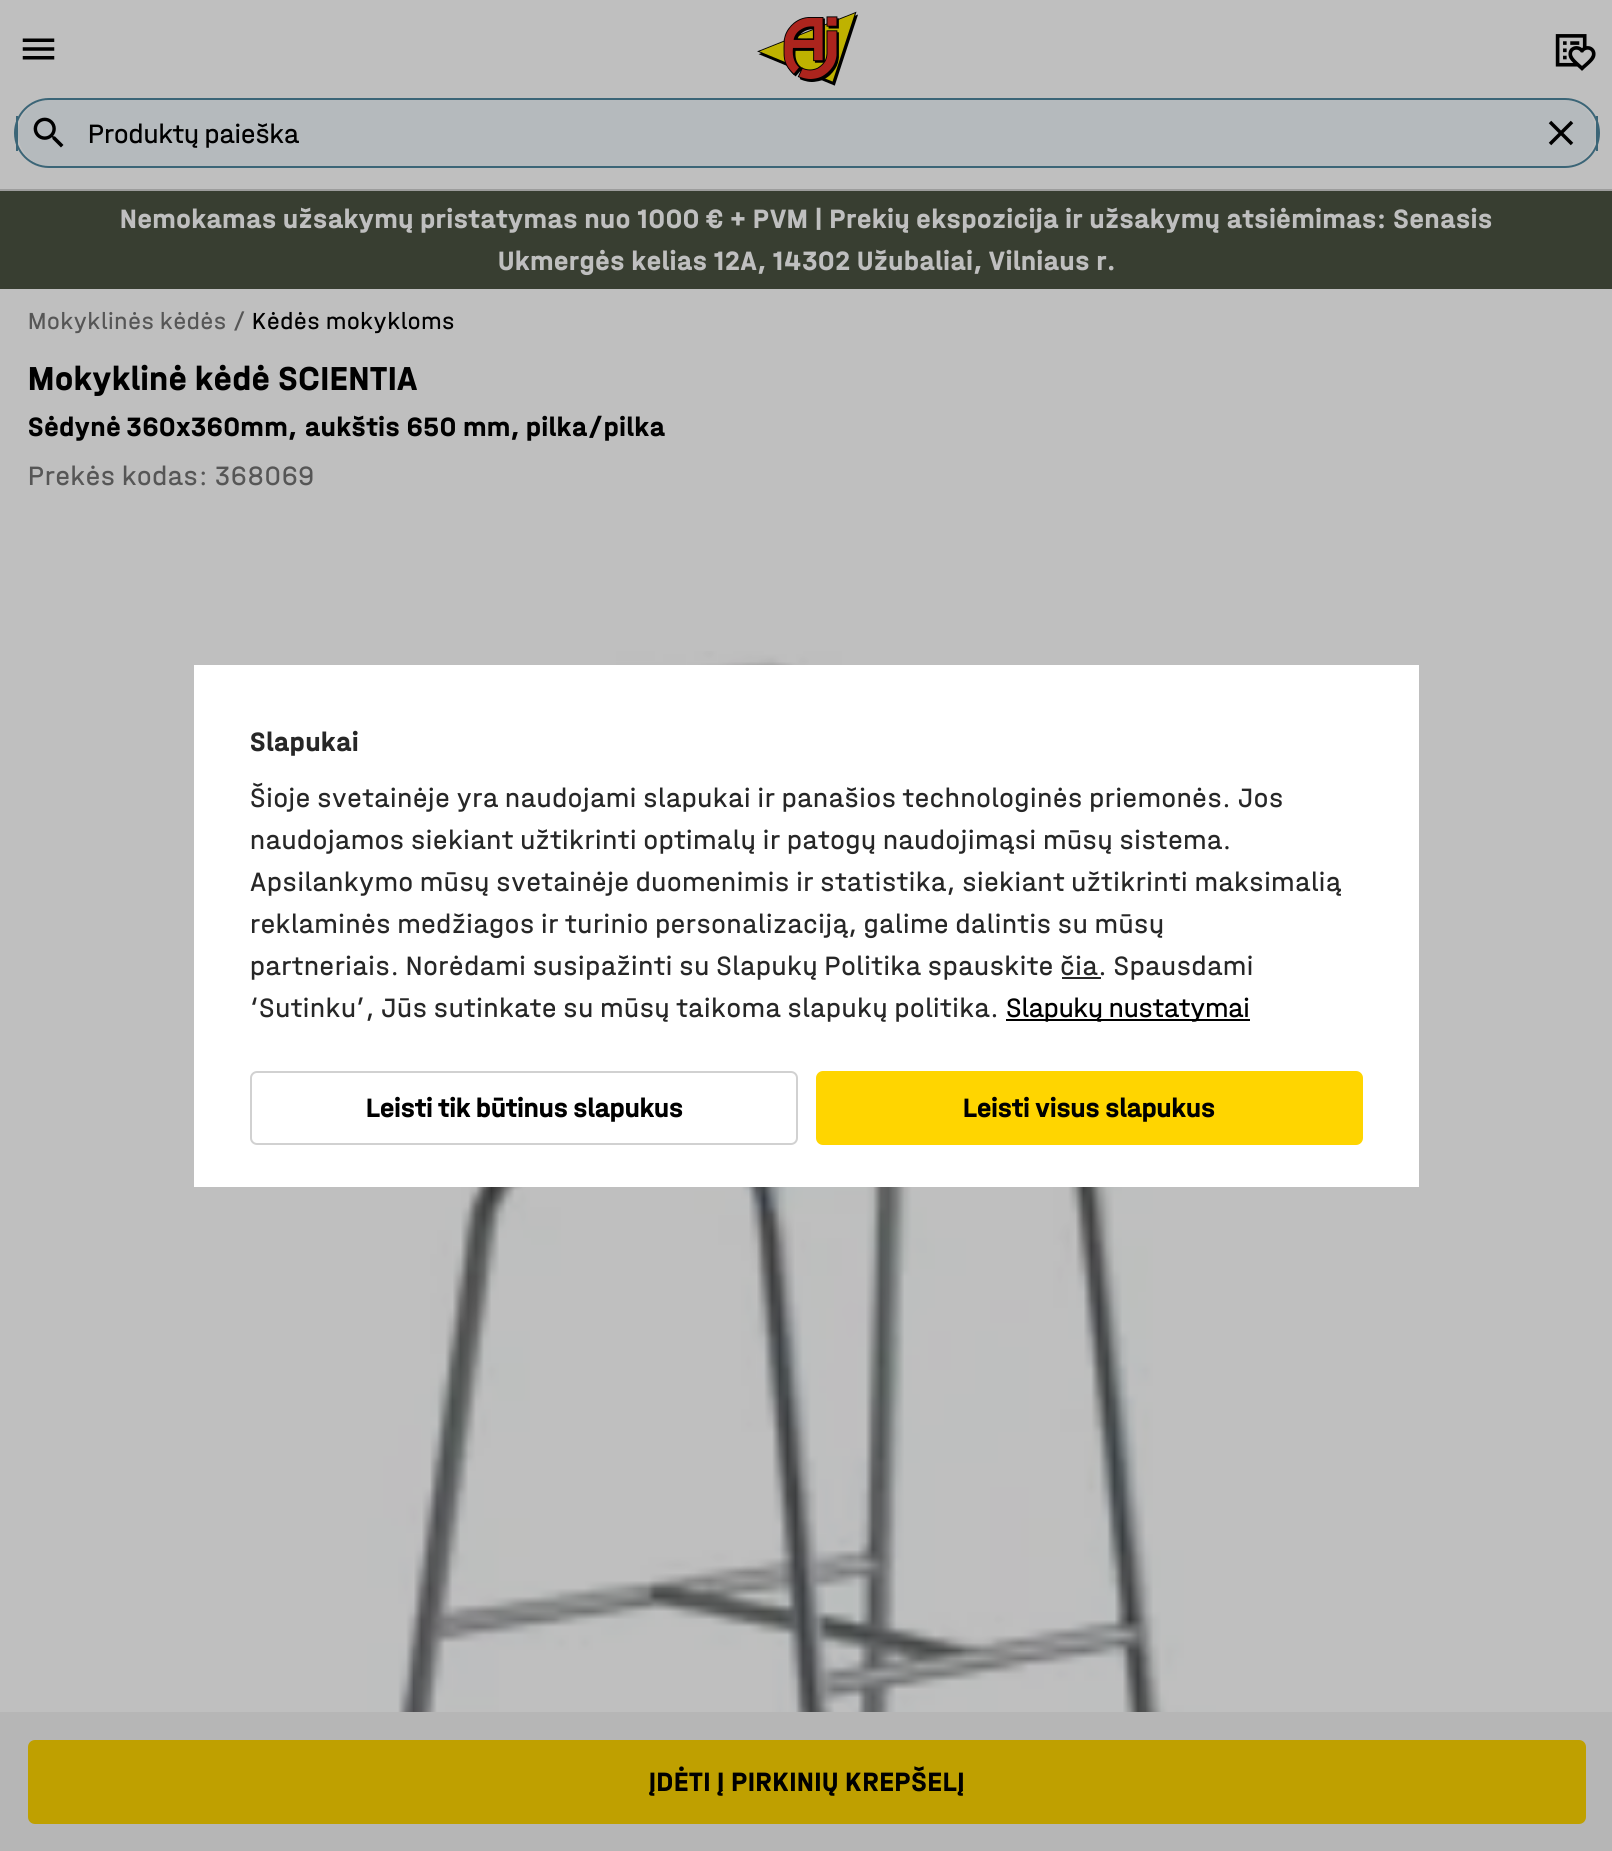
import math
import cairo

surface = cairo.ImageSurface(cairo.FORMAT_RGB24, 1612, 1851)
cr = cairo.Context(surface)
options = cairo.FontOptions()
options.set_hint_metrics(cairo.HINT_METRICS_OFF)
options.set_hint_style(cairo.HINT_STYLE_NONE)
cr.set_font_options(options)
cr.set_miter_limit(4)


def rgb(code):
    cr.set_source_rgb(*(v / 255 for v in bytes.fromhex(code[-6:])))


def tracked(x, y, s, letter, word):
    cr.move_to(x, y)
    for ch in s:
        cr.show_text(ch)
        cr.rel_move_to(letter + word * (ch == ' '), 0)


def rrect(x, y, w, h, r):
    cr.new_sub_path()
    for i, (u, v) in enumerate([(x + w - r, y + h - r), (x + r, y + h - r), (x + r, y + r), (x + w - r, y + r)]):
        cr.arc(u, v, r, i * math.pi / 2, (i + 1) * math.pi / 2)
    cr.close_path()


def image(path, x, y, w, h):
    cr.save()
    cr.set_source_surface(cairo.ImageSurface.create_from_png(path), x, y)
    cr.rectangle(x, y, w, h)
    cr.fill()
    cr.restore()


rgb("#bfbfbf")
cr.paint()
rgb("#9d9d9d")
cr.rectangle(0, 189, 1612, 2)
cr.fill()
image("img/1.png", 22, 38, 33, 22)
image("img/2.png", 757, 11, 101, 75)
image("img/3.png", 1555, 34, 41, 37)
rgb("#b5babd")
cr.new_path()
cr.move_to(49, 100)
cr.line_to(1564, 100)
cr.curve_to(1582, 100, 1596, 115, 1596, 133)
cr.curve_to(1596, 151, 1582, 166, 1564, 166)
cr.line_to(49, 166)
cr.curve_to(32, 166, 18, 151, 18, 133)
cr.curve_to(18, 115, 32, 100, 49, 100)
cr.close_path()
cr.fill()
rrect(15, 99, 1584, 68, 34)
rgb("#3b6577")
cr.stroke()
image("img/4.png", 33, 117, 31, 31)
cr.rectangle(1596, 116, 2, 35)
cr.fill()
cr.rectangle(16, 116, 2, 35)
cr.fill()
image("img/5.png", 1548, 120, 26, 26)
rgb("#383e31")
cr.rectangle(0, 191, 1612, 98)
cr.fill()
image("img/6.png", 118, 651, 1220, 1061)
rgb("#b6b6b6")
cr.rectangle(0, 1712, 1612, 139)
cr.fill()
rgb("#bfa000")
rrect(28, 1740, 1558, 84, 7)
cr.fill()
for x, y, w, h, color in [
    (194, 665, 1225, 522, "#ffffff"),
    (1062, 977, 39, 2, "#272727"),
    (1006, 1019, 244, 2, "#000000"),
]:
    rgb(color)
    cr.rectangle(x, y, w, h)
    cr.fill()
rrect(251, 1072, 546, 72, 6)
rgb("#d1d1d1")
cr.stroke()
rgb("#ffd500")
rrect(816, 1071, 547, 74, 7)
cr.fill()
cr.select_font_face("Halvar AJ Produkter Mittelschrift")
cr.set_font_size(28)
rgb("#000000")
cr.move_to(88, 143)
cr.show_text("Produktų paieška")
cr.select_font_face("Halvar AJ Produkter Mittelschrift", cairo.FONT_SLANT_NORMAL, cairo.FONT_WEIGHT_BOLD)
rgb("#bfbfbf")
tracked(120, 228, "Nemokamas užsakymų pristatymas nuo 1000 € + PVM | Prekių ekspozicija ir užsakymų atsiėmimas: Senasis", 0.7, 0)
tracked(498, 270, "Ukmergės kelias 12A, 14302 Užubaliai, Vilniaus r.", 0.7, 0)
cr.select_font_face("Halvar AJ Produkter Mittelschrift")
cr.set_font_size(24.5)
rgb("#565656")
tracked(28, 329, "Mokyklinės kėdės /", 0.7, 0)
rgb("#000000")
tracked(252, 329, "Kėdės mokykloms", 0.7, 0)
cr.select_font_face("Halvar AJ Produkter Mittelschrift", cairo.FONT_SLANT_NORMAL, cairo.FONT_WEIGHT_BOLD)
cr.set_font_size(35)
tracked(28, 390, "Mokyklinė kėdė SCIENTIA", 0.7, 0)
cr.set_font_size(28)
tracked(28, 436, "Sėdynė 360x360mm,", 0.7, -1)
tracked(305, 436, "aukštis 650 mm, pilka/pilka", 0.7, 0)
cr.select_font_face("Halvar AJ Produkter Mittelschrift")
rgb("#565656")
tracked(28, 485, "Prekės kodas: 368069", 0.7, 0)
cr.select_font_face("Halvar AJ Produkter Mittelschrift", cairo.FONT_SLANT_NORMAL, cairo.FONT_WEIGHT_BOLD)
rgb("#000000")
tracked(649, 1791, "ĮDĖTI Į PIRKINIŲ KREPŠELĮ", 0.7, 0)
rgb("#272727")
tracked(250, 751, "Slapukai", 0.7, 0)
cr.select_font_face("Halvar AJ Produkter Mittelschrift")
for x, y, s in [
    (250, 807, "Šioje svetainėje yra naudojami slapukai ir panašios technologinės priemonės. Jos"),
    (250, 849, "naudojamos siekiant užtikrinti optimalų ir patogų naudojimąsi mūsų sistema."),
    (250, 891, "Apsilankymo mūsų svetainėje duomenimis ir statistika, siekiant užtikrinti maksimalią"),
    (250, 933, "reklaminės medžiagos ir turinio personalizaciją, galime dalintis su mūsų"),
    (250, 975, "partneriais. Norėdami susipažinti su Slapukų Politika spauskite čia. Spausdami"),
    (250, 1017, "‘Sutinku’, Jūs sutinkate su mūsų taikoma slapukų politika."),
]:
    tracked(x, y, s, 0.7, 0)
rgb("#000000")
cr.move_to(1006, 1017)
cr.show_text("Slapukų nustatymai")
cr.select_font_face("Halvar AJ Produkter Mittelschrift", cairo.FONT_SLANT_NORMAL, cairo.FONT_WEIGHT_BOLD)
cr.move_to(366, 1117)
cr.show_text("Leisti tik būtinus slapukus")
cr.move_to(963, 1117)
cr.show_text("Leisti visus slapukus")
surface.write_to_png("page.png")
